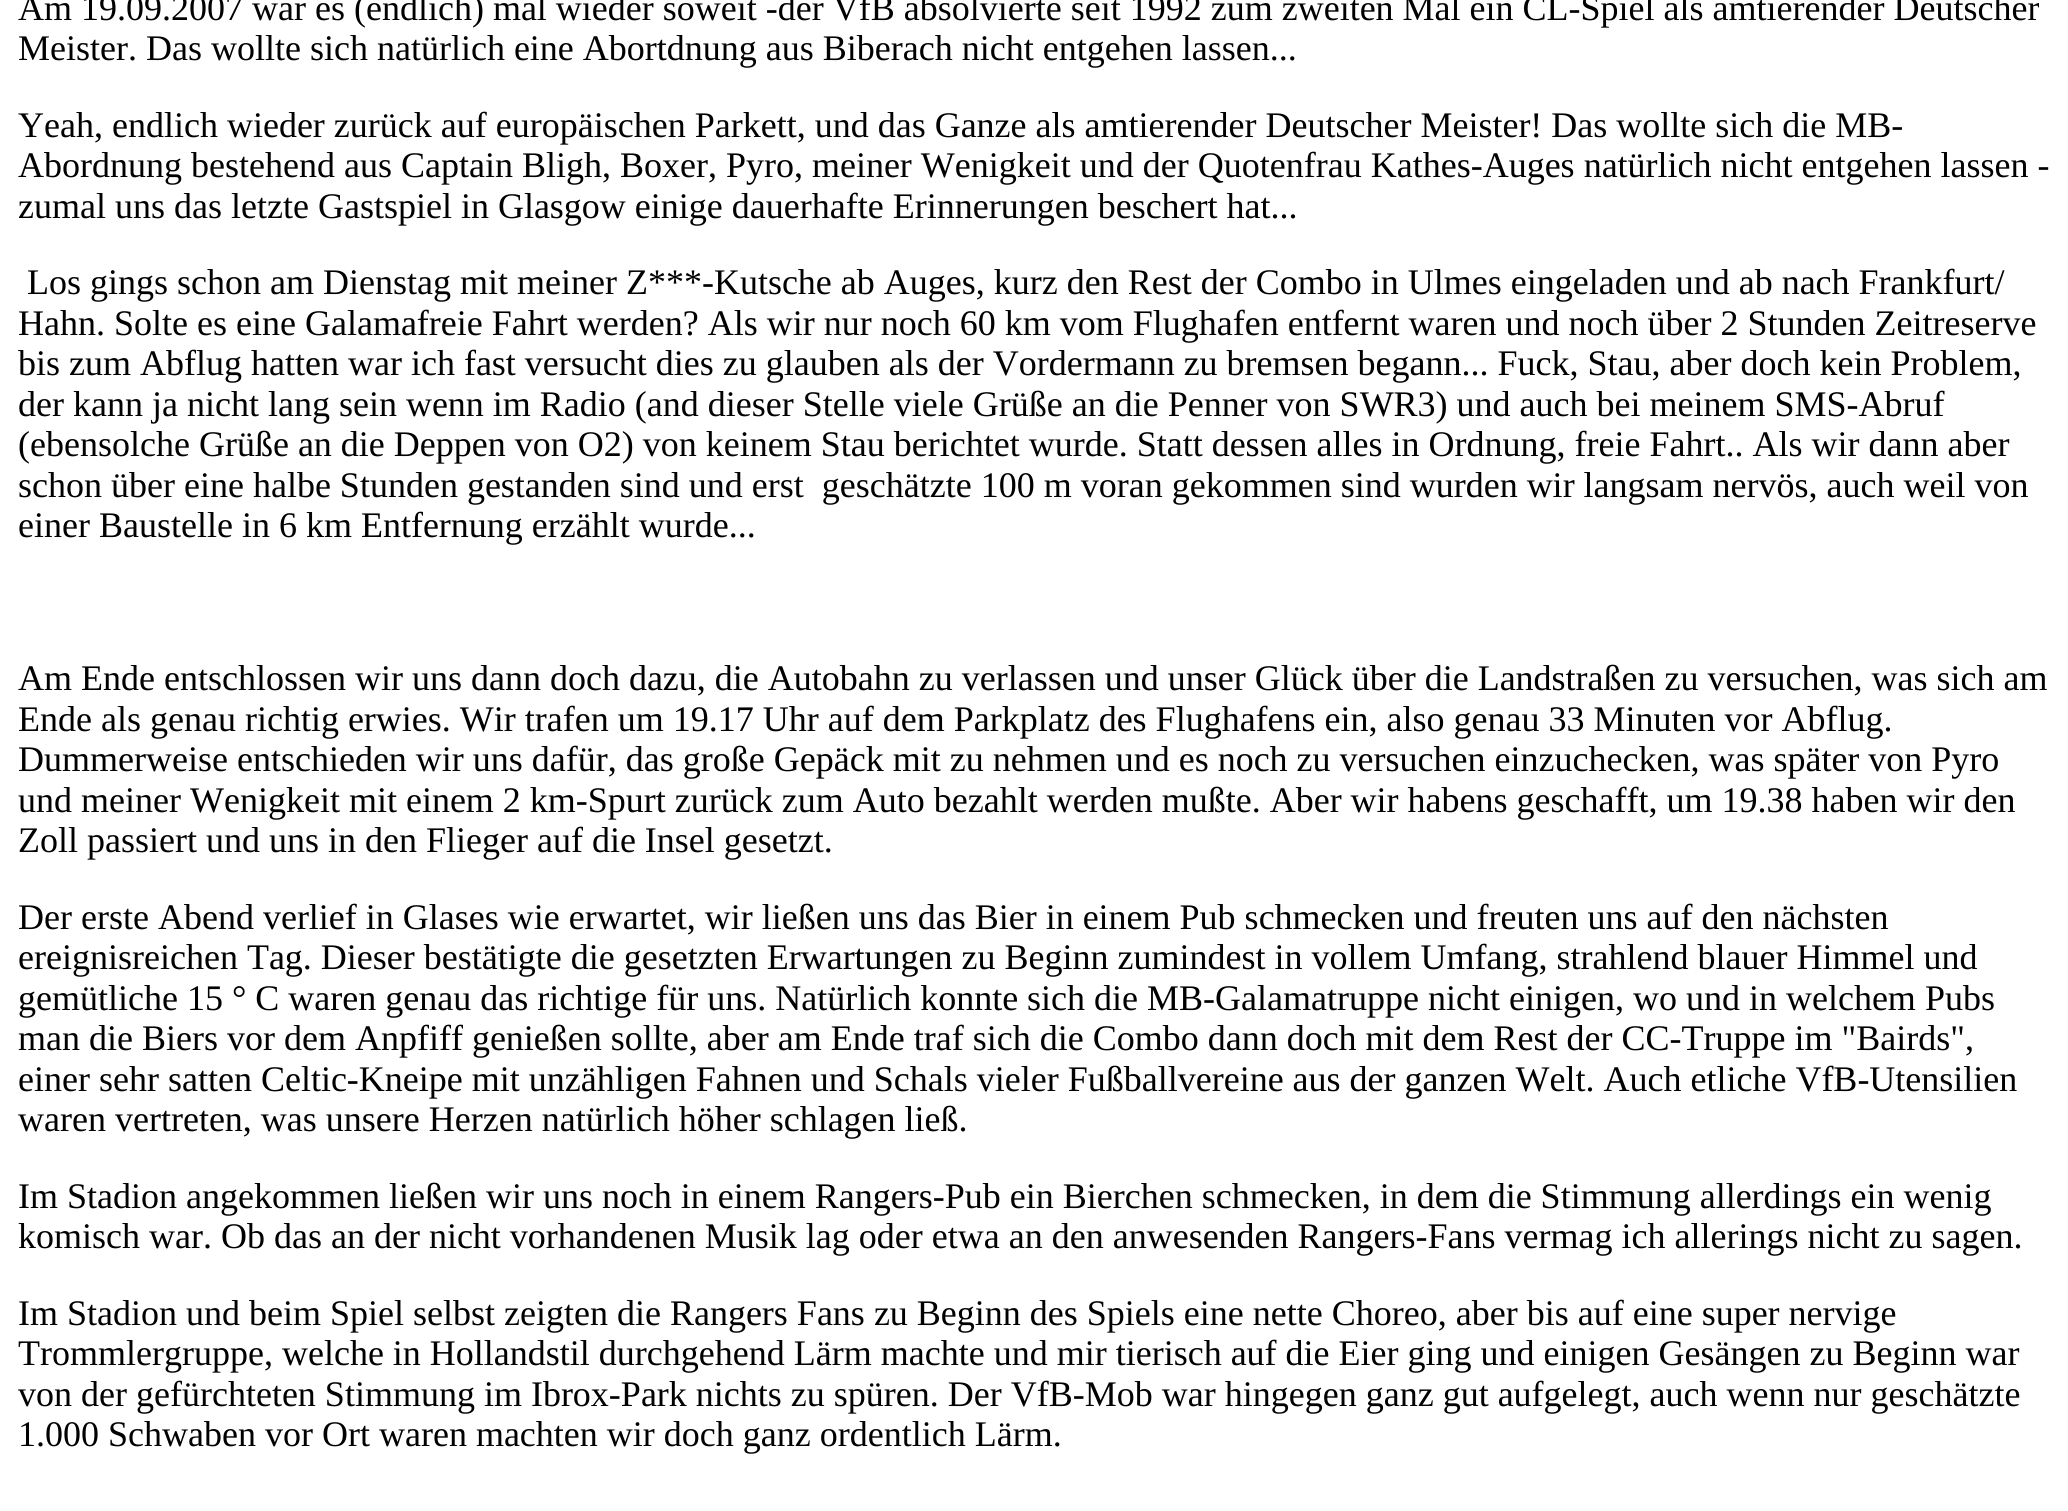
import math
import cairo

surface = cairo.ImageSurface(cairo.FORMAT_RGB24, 2068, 1511)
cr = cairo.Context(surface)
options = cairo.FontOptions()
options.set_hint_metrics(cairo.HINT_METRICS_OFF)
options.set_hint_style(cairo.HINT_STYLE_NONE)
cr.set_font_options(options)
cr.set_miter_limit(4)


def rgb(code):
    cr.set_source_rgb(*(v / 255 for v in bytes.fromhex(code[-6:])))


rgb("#ffffff")
cr.paint()
cr.select_font_face("Liberation Serif")
cr.set_font_size(36)
rgb("#000000")
for x, y, s in [
    (18, 20, "Am 19.09.2007 war es (endlich) mal wieder soweit -der VfB absolvierte seit 1992 zum zweiten Mal ein CL-Spiel als amtierender Deutscher"),
    (18, 60, "Meister. Das wollte sich natürlich eine Abortdnung aus Biberach nicht entgehen lassen..."),
    (18, 137, "Yeah, endlich wieder zurück auf europäischen Parkett, und das Ganze als amtierender Deutscher Meister! Das wollte sich die MB-"),
    (18, 177, "Abordnung bestehend aus Captain Bligh, Boxer, Pyro, meiner Wenigkeit und der Quotenfrau Kathes-Auges natürlich nicht entgehen lassen -"),
    (18, 218, "zumal uns das letzte Gastspiel in Glasgow einige dauerhafte Erinnerungen beschert hat..."),
    (27, 294, "Los gings schon am Dienstag mit meiner Z***-Kutsche ab Auges, kurz den Rest der Combo in Ulmes eingeladen und ab nach Frankfurt/"),
    (18, 335, "Hahn. Solte es eine Galamafreie Fahrt werden? Als wir nur noch 60 km vom Flughafen entfernt waren und noch über 2 Stunden Zeitreserve"),
    (18, 375, "bis zum Abflug hatten war ich fast versucht dies zu glauben als der Vordermann zu bremsen begann... Fuck, Stau, aber doch kein Problem,"),
    (18, 416, "der kann ja nicht lang sein wenn im Radio (and dieser Stelle viele Grüße an die Penner von SWR3) und auch bei meinem SMS-Abruf"),
    (18, 456, "(ebensolche Grüße an die Deppen von O2) von keinem Stau berichtet wurde. Statt dessen alles in Ordnung, freie Fahrt.. Als wir dann aber"),
    (18, 497, "schon über eine halbe Stunden gestanden sind und erst  geschätzte 100 m voran gekommen sind wurden wir langsam nervös, auch weil von"),
    (18, 537, "einer Baustelle in 6 km Entfernung erzählt wurde..."),
    (18, 690, "Am Ende entschlossen wir uns dann doch dazu, die Autobahn zu verlassen und unser Glück über die Landstraßen zu versuchen, was sich am"),
    (18, 731, "Ende als genau richtig erwies. Wir trafen um 19.17 Uhr auf dem Parkplatz des Flughafens ein, also genau 33 Minuten vor Abflug."),
    (18, 771, "Dummerweise entschieden wir uns dafür, das große Gepäck mit zu nehmen und es noch zu versuchen einzuchecken, was später von Pyro"),
    (18, 812, "und meiner Wenigkeit mit einem 2 km-Spurt zurück zum Auto bezahlt werden mußte. Aber wir habens geschafft, um 19.38 haben wir den"),
    (18, 852, "Zoll passiert und uns in den Flieger auf die Insel gesetzt."),
    (18, 929, "Der erste Abend verlief in Glases wie erwartet, wir ließen uns das Bier in einem Pub schmecken und freuten uns auf den nächsten"),
    (18, 969, "ereignisreichen Tag. Dieser bestätigte die gesetzten Erwartungen zu Beginn zumindest in vollem Umfang, strahlend blauer Himmel und"),
    (18, 1010, "gemütliche 15 ° C waren genau das richtige für uns. Natürlich konnte sich die MB-Galamatruppe nicht einigen, wo und in welchem Pubs"),
    (18, 1050, "man die Biers vor dem Anpfiff genießen sollte, aber am Ende traf sich die Combo dann doch mit dem Rest der CC-Truppe im \"Bairds\","),
    (18, 1091, "einer sehr satten Celtic-Kneipe mit unzähligen Fahnen und Schals vieler Fußballvereine aus der ganzen Welt. Auch etliche VfB-Utensilien"),
    (18, 1131, "waren vertreten, was unsere Herzen natürlich höher schlagen ließ."),
    (18, 1208, "Im Stadion angekommen ließen wir uns noch in einem Rangers-Pub ein Bierchen schmecken, in dem die Stimmung allerdings ein wenig"),
    (18, 1248, "komisch war. Ob das an der nicht vorhandenen Musik lag oder etwa an den anwesenden Rangers-Fans vermag ich allerings nicht zu sagen."),
    (18, 1325, "Im Stadion und beim Spiel selbst zeigten die Rangers Fans zu Beginn des Spiels eine nette Choreo, aber bis auf eine super nervige"),
    (18, 1365, "Trommlergruppe, welche in Hollandstil durchgehend Lärm machte und mir tierisch auf die Eier ging und einigen Gesängen zu Beginn war"),
    (18, 1406, "von der gefürchteten Stimmung im Ibrox-Park nichts zu spüren. Der VfB-Mob war hingegen ganz gut aufgelegt, auch wenn nur geschätzte"),
    (18, 1446, "1.000 Schwaben vor Ort waren machten wir doch ganz ordentlich Lärm."),
]:
    cr.move_to(x, y)
    cr.show_text(s)
surface.write_to_png("page.png")
